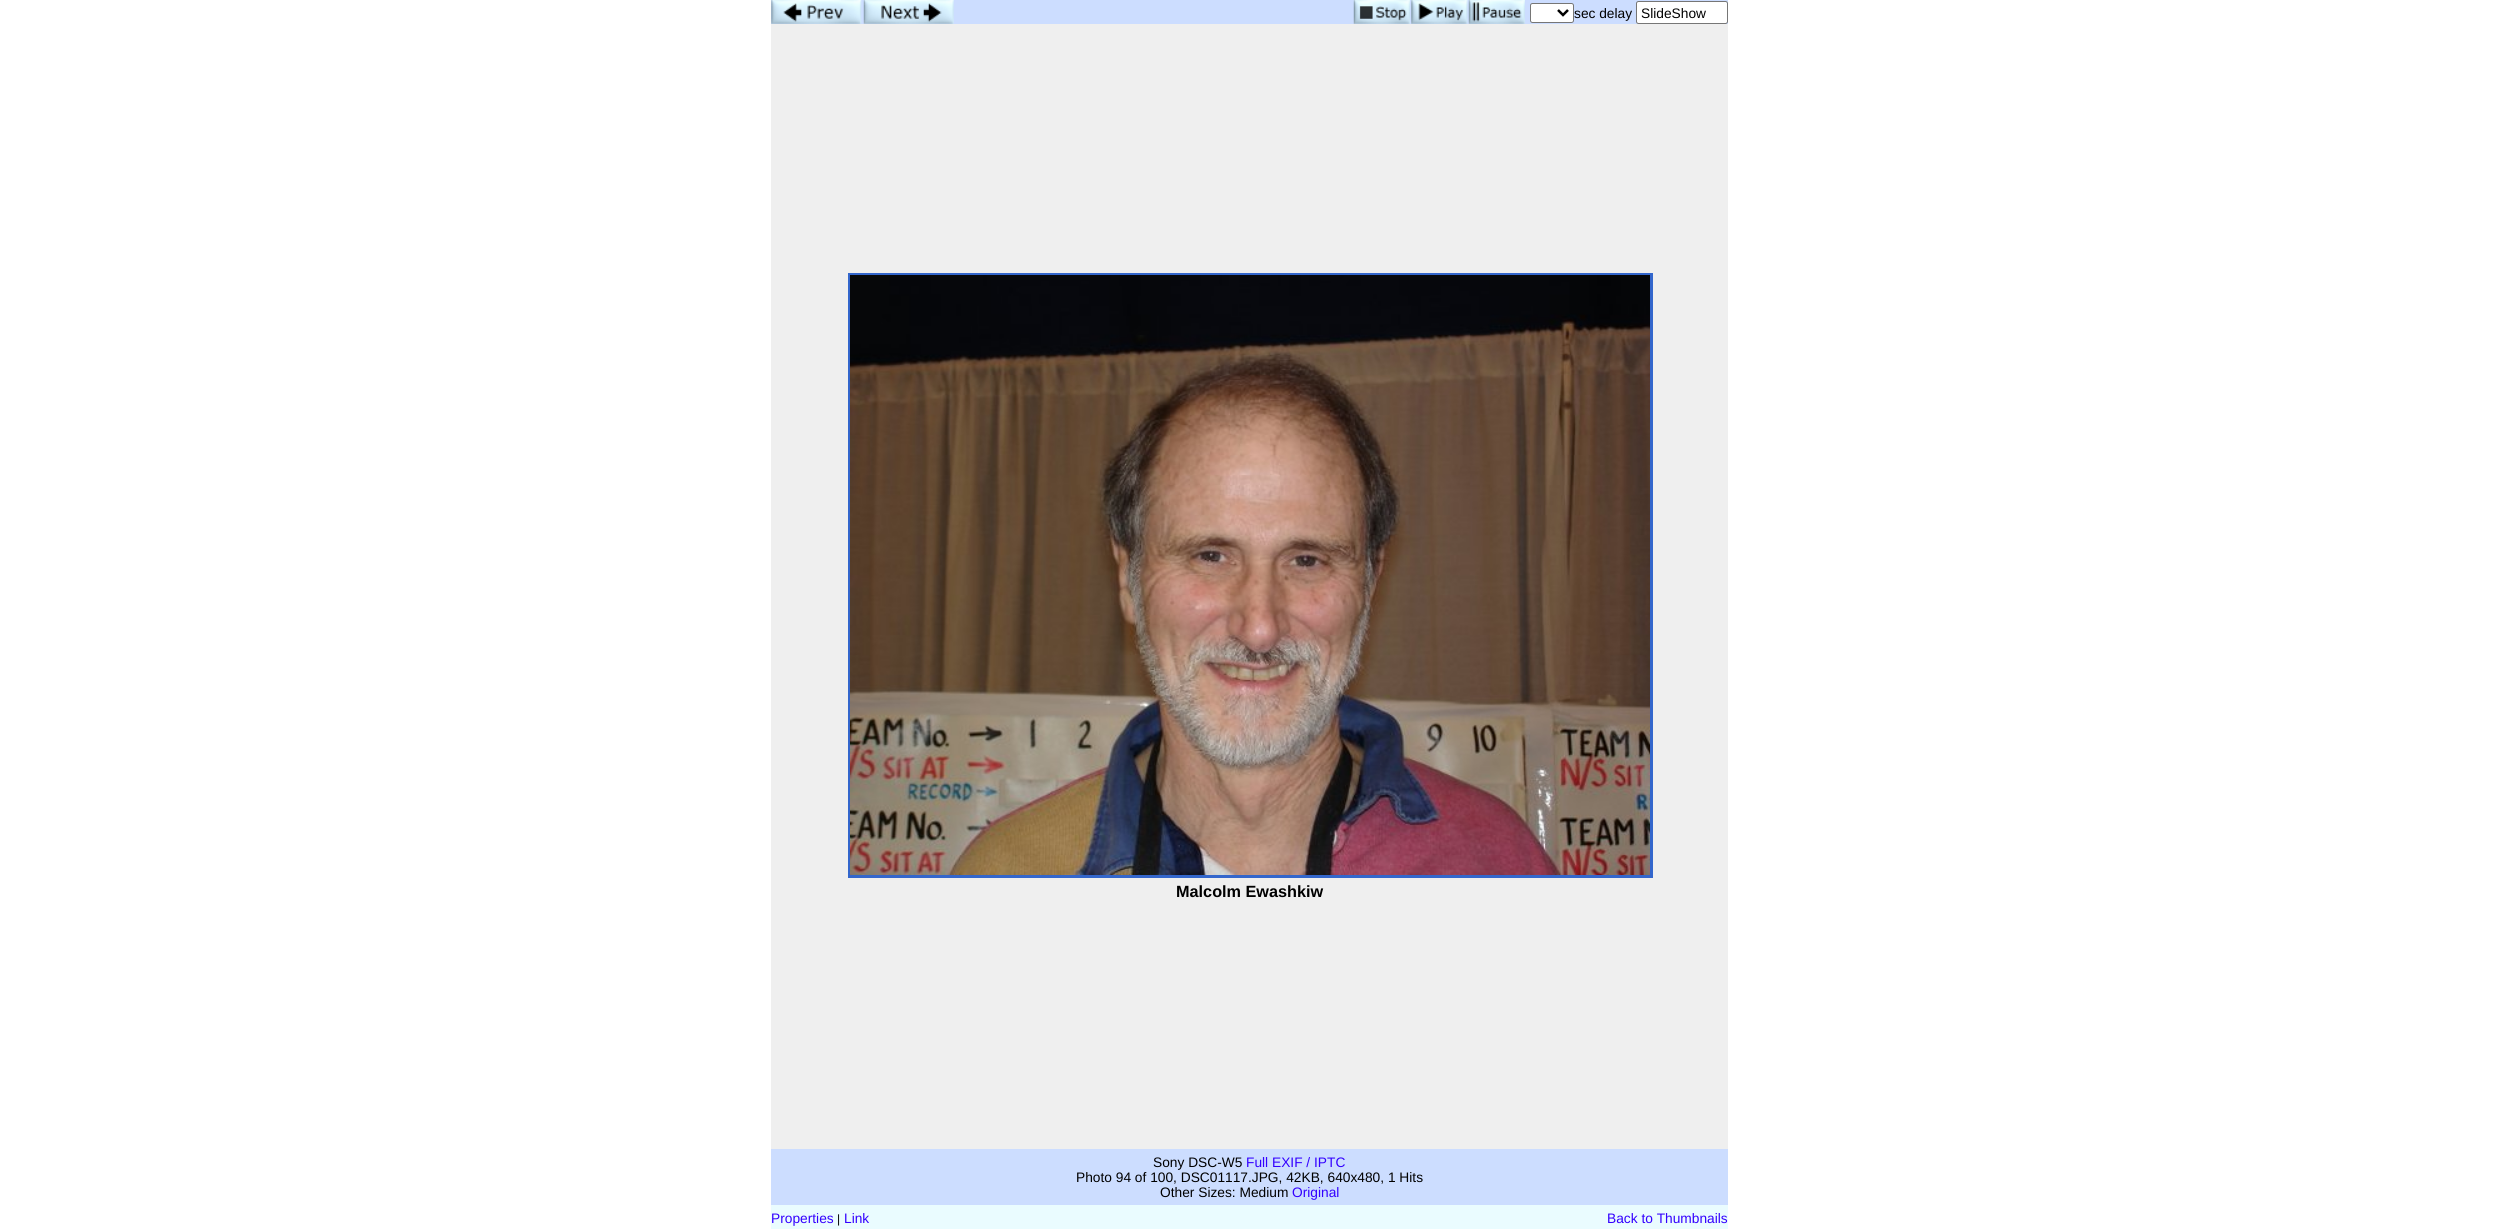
import math
import cairo

surface = cairo.ImageSurface(cairo.FORMAT_RGB24, 2498, 1229)
cr = cairo.Context(surface)
options = cairo.FontOptions()
options.set_hint_metrics(cairo.HINT_METRICS_OFF)
options.set_hint_style(cairo.HINT_STYLE_NONE)
cr.set_font_options(options)
cr.set_miter_limit(4)


def rgb(code):
    cr.set_source_rgb(*(v / 255 for v in bytes.fromhex(code[-6:])))


def rrect(x, y, w, h, r):
    cr.new_sub_path()
    for i, (u, v) in enumerate([(x + w - r, y + h - r), (x + r, y + h - r), (x + r, y + r), (x + w - r, y + r)]):
        cr.arc(u, v, r, i * math.pi / 2, (i + 1) * math.pi / 2)
    cr.close_path()


def image(path, x, y, w, h):
    cr.save()
    cr.set_source_surface(cairo.ImageSurface.create_from_png(path), x, y)
    cr.rectangle(x, y, w, h)
    cr.fill()
    cr.restore()


rgb("#ffffff")
cr.paint()
rgb("#ccddff")
cr.rectangle(771, 0, 957, 24)
cr.fill()
image("img/1.png", 771, 0, 91, 24)
image("img/2.png", 863, 0, 91, 24)
image("img/3.png", 1353, 0, 57, 24)
image("img/4.png", 1411, 0, 57, 24)
image("img/5.png", 1468, 0, 57, 24)
rgb("#ffffff")
rrect(1530.5, 3.5, 43, 19, 2)
cr.fill_preserve()
rgb("#767676")
cr.set_line_width(1)
cr.stroke()
cr.new_path()
cr.move_to(1558, 10)
cr.line_to(1563, 15)
cr.line_to(1568, 10)
rgb("#000000")
cr.set_line_width(2.5)
cr.stroke()
rgb("#ffffff")
rrect(1636.5, 1.5, 91, 22, 2)
cr.fill_preserve()
rgb("#767676")
cr.set_line_width(1)
cr.stroke()
rgb("#efefef")
cr.rectangle(771, 24, 957, 1125)
cr.fill()
cr.rectangle(849.5, 274.5, 802, 602)
rgb("#3366cc")
cr.set_line_width(3)
cr.stroke()
image("img/6.png", 850, 275, 800, 600)
rgb("#ccddff")
cr.rectangle(771, 1149, 957, 56)
cr.fill()
rgb("#eafcff")
cr.rectangle(771, 1205, 957, 24)
cr.fill()
cr.select_font_face("Liberation Sans")
cr.set_font_size(13.75)
rgb("#000000")
cr.move_to(1574, 18)
cr.show_text("sec delay")
cr.move_to(1641, 18)
cr.show_text("SlideShow")
cr.select_font_face("Liberation Sans", cairo.FONT_SLANT_NORMAL, cairo.FONT_WEIGHT_BOLD)
cr.set_font_size(16.25)
cr.move_to(1176, 897)
cr.show_text("Malcolm Ewashkiw")
cr.select_font_face("Liberation Sans")
cr.set_font_size(13.75)
cr.move_to(1153, 1167)
cr.show_text("Sony DSC-W5")
rgb("#3300ff")
cr.move_to(1246, 1167)
cr.show_text("Full EXIF / IPTC")
rgb("#000000")
cr.move_to(1076, 1182)
cr.show_text("Photo 94 of 100, DSC01117.JPG, 42KB, 640x480, 1 Hits")
cr.move_to(1160, 1197)
cr.show_text("Other Sizes: Medium")
rgb("#3300ff")
cr.move_to(1292, 1197)
cr.show_text("Original")
cr.move_to(771, 1223)
cr.show_text("Properties")
cr.set_font_size(12)
rgb("#000000")
cr.move_to(837, 1223)
cr.show_text("|")
cr.set_font_size(13.75)
rgb("#3300ff")
cr.move_to(844, 1223)
cr.show_text("Link")
cr.move_to(1607, 1223)
cr.show_text("Back to Thumbnails")
surface.write_to_png("page.png")
